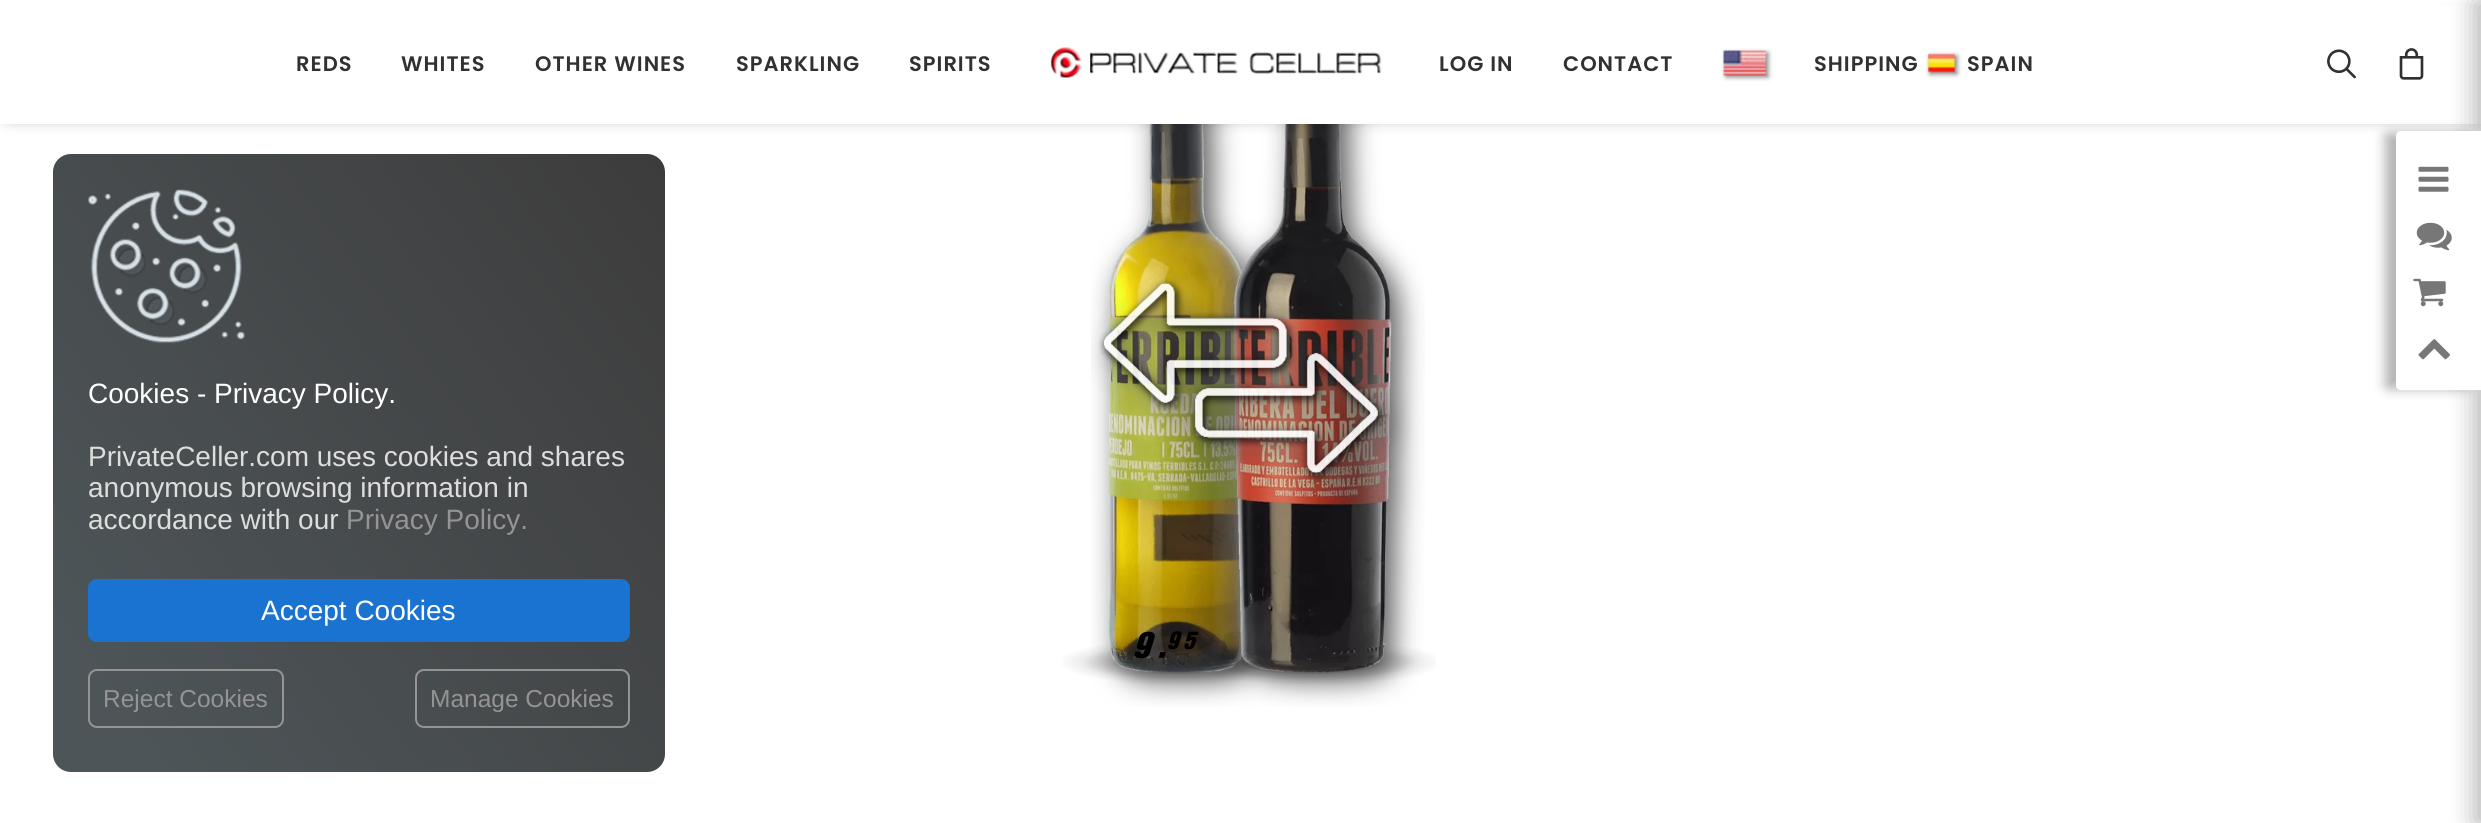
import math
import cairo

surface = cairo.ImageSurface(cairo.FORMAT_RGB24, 2481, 823)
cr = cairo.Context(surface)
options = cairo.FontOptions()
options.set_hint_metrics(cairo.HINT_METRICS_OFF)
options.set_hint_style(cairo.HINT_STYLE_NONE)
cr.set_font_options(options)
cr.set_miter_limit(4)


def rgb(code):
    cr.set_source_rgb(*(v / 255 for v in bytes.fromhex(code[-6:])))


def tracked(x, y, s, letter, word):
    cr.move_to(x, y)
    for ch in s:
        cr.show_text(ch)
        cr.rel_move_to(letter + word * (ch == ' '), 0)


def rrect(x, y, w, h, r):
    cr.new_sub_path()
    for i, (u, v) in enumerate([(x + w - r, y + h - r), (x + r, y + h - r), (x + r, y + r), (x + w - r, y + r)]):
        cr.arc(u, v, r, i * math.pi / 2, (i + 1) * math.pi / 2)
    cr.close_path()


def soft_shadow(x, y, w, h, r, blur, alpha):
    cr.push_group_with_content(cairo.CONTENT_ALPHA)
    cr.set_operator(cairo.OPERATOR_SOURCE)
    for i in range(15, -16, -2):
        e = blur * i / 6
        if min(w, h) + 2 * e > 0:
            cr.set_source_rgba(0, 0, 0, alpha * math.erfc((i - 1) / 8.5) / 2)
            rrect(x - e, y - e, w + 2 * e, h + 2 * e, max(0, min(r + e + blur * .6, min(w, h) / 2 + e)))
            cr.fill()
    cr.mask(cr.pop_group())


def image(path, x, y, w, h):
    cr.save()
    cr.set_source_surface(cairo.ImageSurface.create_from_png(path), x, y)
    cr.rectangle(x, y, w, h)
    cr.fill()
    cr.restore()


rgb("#ffffff")
cr.paint()
gradient = cairo.RadialGradient(0, 0, 0, 0, 0, 1)
gradient.set_matrix(cairo.Matrix(1 / 170, 0, 0, 1 / 33, -1 * 1177 / 170, -1 * 662 / 33))
gradient.add_color_stop_rgba(0.35, 0.58, 0.58, 0.58, 1)
gradient.add_color_stop_rgba(0.38, 0.722, 0.722, 0.722, 1)
gradient.add_color_stop_rgba(0.56, 0.929, 0.929, 0.929, 1)
gradient.add_color_stop_rgba(0.7, 1, 1, 1, 1)
cr.set_source(gradient)
cr.rectangle(1061, 640, 232, 44)
cr.fill()
image("img/7.png", 1091, 124, 184, 583)
gradient = cairo.LinearGradient(706, 211, 11, 715)
gradient.add_color_stop_rgba(0, 0.239, 0.235, 0.235, 1)
gradient.add_color_stop_rgba(0.9, 0.302, 0.333, 0.345, 1)
cr.set_source(gradient)
rrect(53, 154, 612, 618, 18)
cr.fill()
image("img/13.png", 87, 189, 159, 155)
rgb("#1a72d1")
rrect(89, 580, 540, 61, 8)
cr.fill_preserve()
cr.stroke()
rrect(89, 670, 194, 57, 8)
rgb("#949494")
cr.stroke()
rrect(416, 670, 213, 57, 8)
cr.stroke()
cr.select_font_face("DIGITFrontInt")
cr.set_font_size(32)
rgb("#000000")
cr.move_to(1133, 660)
cr.show_text("9.")
cr.select_font_face("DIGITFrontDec", cairo.FONT_SLANT_ITALIC)
cr.move_to(1167, 660)
cr.show_text("95")
gradient = cairo.RadialGradient(0, 0, 0, 0, 0, 1)
gradient.set_matrix(cairo.Matrix(1 / 191, 0, 0, 1 / 33, -1 * 1311 / 191, -1 * 662 / 33))
gradient.add_color_stop_rgba(0.35, 0, 0, 0, 0.42)
gradient.add_color_stop_rgba(0.38, 0, 0, 0, 0.28)
gradient.add_color_stop_rgba(0.56, 0, 0, 0, 0.07)
gradient.add_color_stop_rgba(0.7, 0, 0, 0, 0)
cr.set_source(gradient)
cr.rectangle(1197, 644, 239, 40)
cr.fill()
image("img/8.png", 1222, 124, 203, 583)
rgb("#000000")
soft_shadow(9, 25, 2464, 89, 0, 9, 0.6)
rgb("#ffffff")
cr.rectangle(0, 6, 2481, 118)
cr.fill()
image("img/1.png", 1050, 47, 332, 31)
image("img/5.png", 2399, 48, 25, 32)
image("img/4.png", 2327, 49, 29, 30)
cr.select_font_face("Poppins SemiBold")
cr.set_font_size(21)
rgb("#303133")
tracked(1967, 71, "SPAIN", 1, 0)
rgb("#808080")
soft_shadow(1930, 56, 27, 18, 0, 2.5, 1)
image("img/3.png", 1928, 53, 27, 20)
rgb("#303133")
tracked(1814, 71, "SHIPPING", 1, 0)
rgb("#808080")
soft_shadow(1726, 53, 42, 24, 0, 2.5, 1)
image("img/2.png", 1723, 50, 44, 26)
rgb("#303133")
for x, y, s in [
    (1563, 71, "CONTACT"),
    (1439, 71, "LOG IN"),
    (909, 71, "SPIRITS"),
    (736, 71, "SPARKLING"),
    (535, 71, "OTHER WINES"),
    (401, 71, "WHITES"),
    (296, 71, "REDS"),
]:
    tracked(x, y, s, 1, 0)
image("img/6.png", 1091, 271, 320, 232)
rgb("#000000")
soft_shadow(2475, 2, 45, 821, 0, 13, 0.3)
soft_shadow(2385, 133, 84, 256, 4, 6, 0.3)
rgb("#ffffff")
cr.new_path()
cr.move_to(2401, 131)
cr.line_to(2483, 131)
cr.line_to(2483, 390)
cr.line_to(2401, 390)
cr.curve_to(2398, 390, 2396, 388, 2396, 385)
cr.line_to(2396, 136)
cr.curve_to(2396, 133, 2398, 131, 2401, 131)
cr.close_path()
cr.fill()
image("img/9.png", 2418, 166, 31, 26)
image("img/10.png", 2416, 222, 36, 29)
image("img/11.png", 2413, 278, 33, 29)
image("img/12.png", 2418, 339, 32, 21)
cr.select_font_face("Liberation Sans")
cr.set_font_size(28)
cr.move_to(88, 403)
cr.show_text("Cookies - Privacy Policy.")
rgb("#dddddd")
for x, y, s in [
    (88, 466, "PrivateCeller.com uses cookies and shares"),
    (88, 497, "anonymous browsing information in"),
    (88, 529, "accordance with our"),
]:
    cr.move_to(x, y)
    cr.show_text(s)
rgb("#949494")
cr.move_to(346, 529)
cr.show_text("Privacy Policy.")
rgb("#ffffff")
cr.move_to(261, 620)
cr.show_text("Accept Cookies")
cr.set_font_size(24.5)
rgb("#949494")
cr.move_to(103, 707)
cr.show_text("Reject Cookies")
cr.move_to(430, 707)
cr.show_text("Manage Cookies")
surface.write_to_png("page.png")
